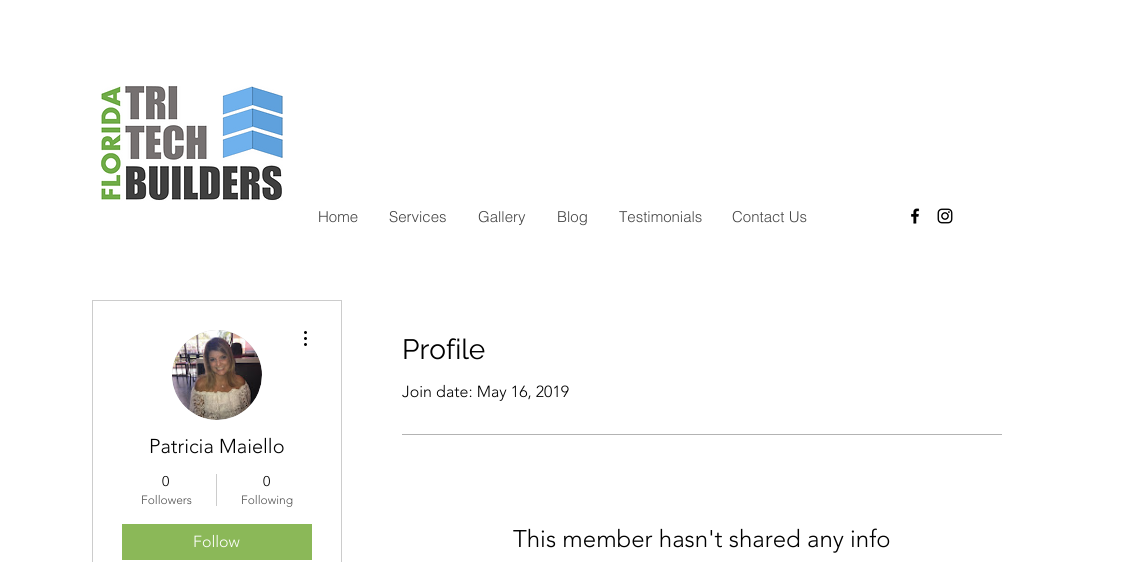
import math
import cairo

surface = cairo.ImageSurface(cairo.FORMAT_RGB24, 1123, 562)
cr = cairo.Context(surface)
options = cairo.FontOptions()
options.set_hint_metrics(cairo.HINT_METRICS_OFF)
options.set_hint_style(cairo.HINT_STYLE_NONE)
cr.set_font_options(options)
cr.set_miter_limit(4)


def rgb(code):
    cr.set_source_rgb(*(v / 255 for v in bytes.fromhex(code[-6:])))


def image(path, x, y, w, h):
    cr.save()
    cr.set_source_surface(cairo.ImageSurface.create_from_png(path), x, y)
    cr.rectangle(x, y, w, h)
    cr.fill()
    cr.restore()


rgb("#ffffff")
cr.paint()
image("img/1.png", 101, 86, 182, 115)
image("img/2.png", 911, 208, 9, 16)
image("img/3.png", 937, 208, 16, 16)
cr.rectangle(92.5, 300.5, 249, 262)
rgb("#cccccc")
cr.set_line_width(1)
cr.stroke()
rgb("#d8d8d8")
cr.arc(217, 375, 45, 0, 2 * math.pi)
cr.fill()
image("img/4.png", 172, 330, 90, 90)
image("img/5.png", 304, 331, 3, 15)
for x, y, w, h, color in [
    (216, 474, 1, 32, "#cccccc"),
    (122, 524, 190, 36, "#8bb858"),
    (402, 434, 600, 1, "#b3b3b3"),
]:
    rgb(color)
    cr.rectangle(x, y, w, h)
    cr.fill()
cr.select_font_face("helvetica Light")
cr.set_font_size(15)
rgb("#444444")
for x, y, s in [
    (318, 222, "Home"),
    (389, 222, "Services"),
    (478, 222, "Gallery"),
    (557, 222, "Blog"),
    (619, 222, "Testimonials"),
    (732, 222, "Contact Us"),
]:
    cr.move_to(x, y)
    cr.show_text(s)
cr.select_font_face("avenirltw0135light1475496 Light")
cr.set_font_size(20)
rgb("#000000")
cr.move_to(149, 453)
cr.show_text("Patricia Maiello")
cr.set_font_size(14)
cr.move_to(162, 486)
cr.show_text("0")
cr.set_font_size(12)
rgb("#4d4d4d")
cr.move_to(141, 504)
cr.show_text("Followers")
cr.set_font_size(14)
rgb("#000000")
cr.move_to(263, 486)
cr.show_text("0")
cr.set_font_size(12)
rgb("#4d4d4d")
cr.move_to(241, 504)
cr.show_text("Following")
cr.set_font_size(16)
rgb("#ffffff")
cr.move_to(193, 547)
cr.show_text("Follow")
cr.select_font_face("Raleway")
cr.set_font_size(28)
rgb("#000000")
cr.move_to(402, 359)
cr.show_text("Profile")
cr.select_font_face("avenirltw0135light1475496 Light")
cr.set_font_size(16)
cr.move_to(402, 397)
cr.show_text("Join date: May 16, 2019")
cr.set_font_size(24)
cr.move_to(513, 547)
cr.show_text("This member hasn't shared any info")
surface.write_to_png("page.png")
